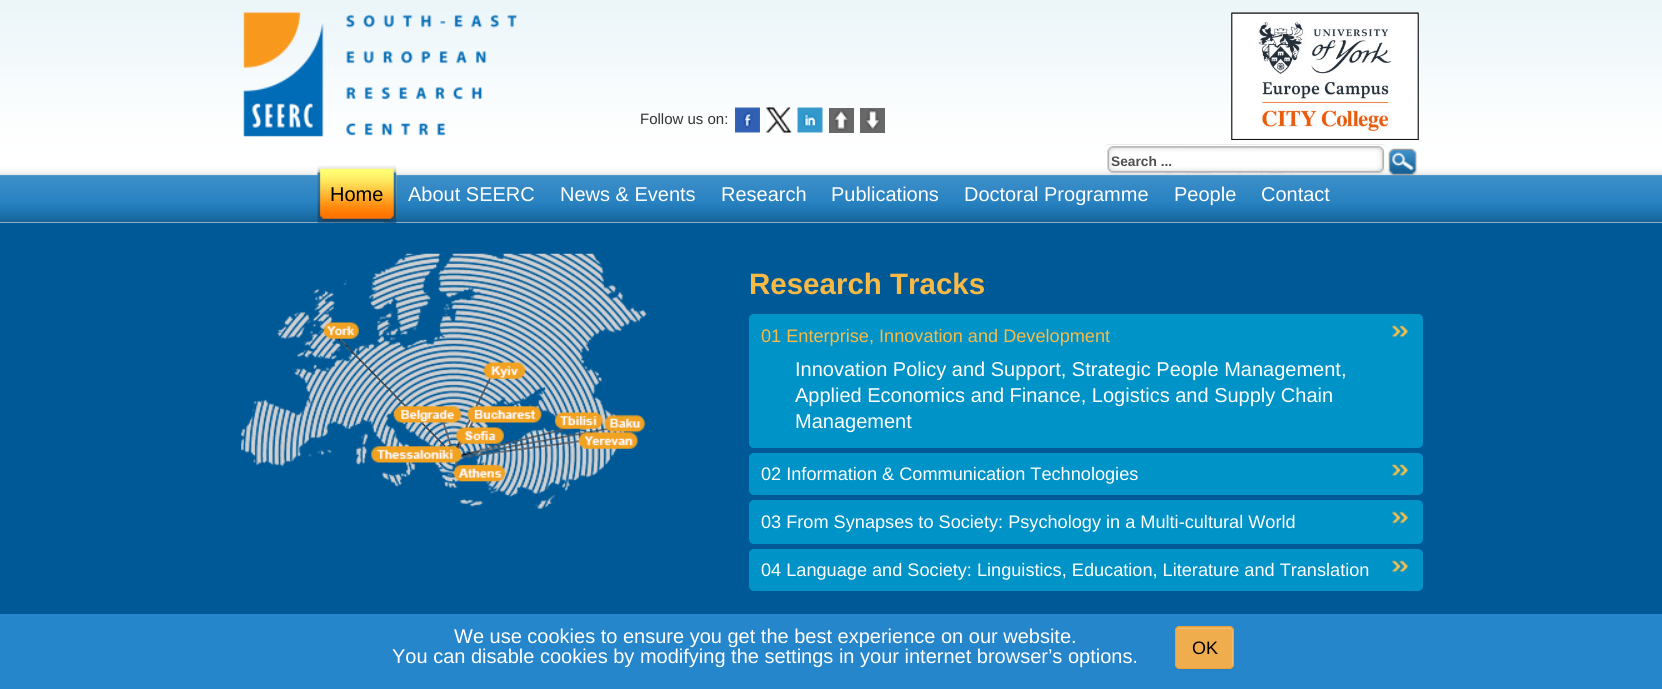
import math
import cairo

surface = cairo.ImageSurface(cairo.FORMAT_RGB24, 1662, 689)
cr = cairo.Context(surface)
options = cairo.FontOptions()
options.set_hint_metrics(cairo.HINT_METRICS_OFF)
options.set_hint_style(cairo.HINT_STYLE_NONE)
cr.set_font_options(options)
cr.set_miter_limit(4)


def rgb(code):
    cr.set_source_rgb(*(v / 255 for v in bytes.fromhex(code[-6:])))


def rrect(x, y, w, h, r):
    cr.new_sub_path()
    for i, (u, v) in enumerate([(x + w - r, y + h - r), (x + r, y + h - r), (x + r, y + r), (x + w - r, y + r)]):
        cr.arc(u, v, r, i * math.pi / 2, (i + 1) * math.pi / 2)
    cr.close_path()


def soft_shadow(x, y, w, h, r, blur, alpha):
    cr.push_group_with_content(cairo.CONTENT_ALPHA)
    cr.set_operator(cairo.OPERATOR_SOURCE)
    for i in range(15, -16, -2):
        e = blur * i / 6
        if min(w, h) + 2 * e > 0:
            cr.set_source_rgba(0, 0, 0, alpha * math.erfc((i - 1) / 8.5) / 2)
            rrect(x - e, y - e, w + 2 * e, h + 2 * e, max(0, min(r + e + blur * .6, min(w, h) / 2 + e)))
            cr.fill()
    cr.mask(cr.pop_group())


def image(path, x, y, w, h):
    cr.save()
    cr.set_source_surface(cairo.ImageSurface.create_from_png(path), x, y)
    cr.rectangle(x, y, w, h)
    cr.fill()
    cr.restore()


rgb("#ffffff")
cr.paint()
image("img/1.png", 0, 0, 1662, 223)
image("img/2.png", 243, 12, 274, 125)
image("img/3.png", 735, 107, 25, 26)
image("img/4.png", 766, 107, 26, 26)
image("img/5.png", 797, 107, 26, 26)
rgb("#686868")
cr.rectangle(829, 108, 25, 25)
cr.fill()
image("img/6.png", 834, 110, 15, 21)
cr.rectangle(860, 108, 25, 25)
cr.fill()
image("img/7.png", 865, 109, 15, 21)
image("img/8.png", 1231, 12, 188, 128)
image("img/9.png", 1107, 146, 278, 29)
rgb("#ebecec")
cr.new_path()
cr.move_to(1109, 145)
cr.line_to(1382, 145)
cr.curve_to(1385, 145, 1386, 147, 1386, 149)
cr.curve_to(1386, 146, 1385, 144, 1382, 144)
cr.line_to(1109, 144)
cr.curve_to(1106, 144, 1105, 146, 1105, 149)
cr.curve_to(1105, 147, 1107, 145, 1109, 145)
cr.close_path()
cr.fill()
image("img/10.png", 1388, 148, 30, 28)
image("img/11.png", 317, 165, 80, 58)
image("img/12.png", 383, 168, 14, 55)
rgb("#005997")
cr.rectangle(0, 223, 1662, 391)
cr.fill()
image("img/13.png", 241, 253, 406, 256)
rgb("#0093c8")
cr.new_path()
cr.move_to(754, 314)
cr.line_to(1418, 314)
cr.curve_to(1421, 314, 1423, 316, 1423, 319)
cr.line_to(1423, 358)
cr.line_to(749, 358)
cr.line_to(749, 319)
cr.curve_to(749, 316, 751, 314, 754, 314)
cr.close_path()
cr.fill()
image("img/14.png", 1392, 325, 16, 13)
cr.new_path()
cr.move_to(749, 358)
cr.line_to(1423, 358)
cr.line_to(1423, 443)
cr.curve_to(1423, 446, 1421, 448, 1418, 448)
cr.line_to(754, 448)
cr.curve_to(751, 448, 749, 446, 749, 443)
cr.close_path()
cr.fill()
rrect(749, 453, 674, 42, 5)
cr.fill()
image("img/15.png", 1392, 463, 16, 14)
rrect(749, 500, 674, 44, 5)
cr.fill()
image("img/16.png", 1392, 511, 16, 13)
rrect(749, 549, 674, 42, 5)
cr.fill()
image("img/14.png", 1392, 560, 16, 13)
rgb("#2686cb")
cr.rectangle(0, 614, 1662, 75)
cr.fill()
rgb("#000000")
soft_shadow(1175, 628, 59, 42, 5, 1, 0.05)
rgb("#f0ad4e")
rrect(1175, 626, 59, 43, 5)
cr.fill()
rgb("#f3bd71")
cr.new_path()
cr.move_to(1180, 629)
cr.line_to(1221, 629)
cr.curve_to(1235, 629, 1232, 628, 1232, 643)
cr.line_to(1232, 667)
cr.curve_to(1232, 666, 1233, 665, 1233, 664)
cr.line_to(1233, 632)
cr.curve_to(1233, 630, 1231, 628, 1229, 628)
cr.line_to(1180, 628)
cr.curve_to(1178, 628, 1176, 630, 1176, 632)
cr.curve_to(1176, 630, 1178, 629, 1180, 629)
cr.close_path()
cr.fill()
rrect(1175.5, 626.5, 58, 42, 4.5)
rgb("#eea236")
cr.set_line_width(1)
cr.stroke()
cr.select_font_face("Liberation Sans")
cr.set_font_size(15)
rgb("#333333")
cr.move_to(640, 124)
cr.show_text("Follow us on:")
cr.select_font_face("Liberation Sans", cairo.FONT_SLANT_NORMAL, cairo.FONT_WEIGHT_BOLD)
cr.set_font_size(13.75)
rgb("#4f4f4f")
cr.move_to(1111, 166)
cr.show_text("Search ...")
cr.select_font_face("Liberation Sans")
cr.set_font_size(20)
rgb("#000000")
cr.move_to(330, 201)
cr.show_text("Home")
rgb("#ffffff")
for x, y, s in [
    (408, 201, "About SEERC"),
    (560, 201, "News & Events"),
    (721, 201, "Research"),
    (831, 201, "Publications"),
    (964, 201, "Doctoral Programme"),
    (1174, 201, "People"),
    (1261, 201, "Contact"),
]:
    cr.move_to(x, y)
    cr.show_text(s)
cr.select_font_face("Liberation Sans", cairo.FONT_SLANT_NORMAL, cairo.FONT_WEIGHT_BOLD)
cr.set_font_size(29.5)
rgb("#f9ba45")
cr.move_to(749, 294)
cr.show_text("Research Tracks")
cr.select_font_face("Liberation Sans")
cr.set_font_size(18.15)
cr.move_to(761, 342)
cr.show_text("01 Enterprise, Innovation and Development")
cr.set_font_size(20)
rgb("#ffffff")
for x, y, s in [
    (795, 376, "Innovation Policy and Support, Strategic People Management,"),
    (795, 402, "Applied Economics and Finance, Logistics and Supply Chain"),
    (795, 428, "Management"),
]:
    cr.move_to(x, y)
    cr.show_text(s)
cr.set_font_size(18.15)
for x, y, s in [
    (761, 480, "02 Information & Communication Technologies"),
    (761, 528, "03 From Synapses to Society: Psychology in a Multi-cultural World"),
    (761, 576, "04 Language and Society: Linguistics, Education, Literature and Translation"),
]:
    cr.move_to(x, y)
    cr.show_text(s)
cr.set_font_size(20)
cr.move_to(454, 643)
cr.show_text("We use cookies to ensure you get the best experience on our website.")
cr.move_to(392, 663)
cr.show_text("You can disable cookies by modifying the settings in your internet browser’s options.")
cr.set_font_size(18)
rgb("#000000")
cr.move_to(1192, 654)
cr.show_text("OK")
surface.write_to_png("page.png")
